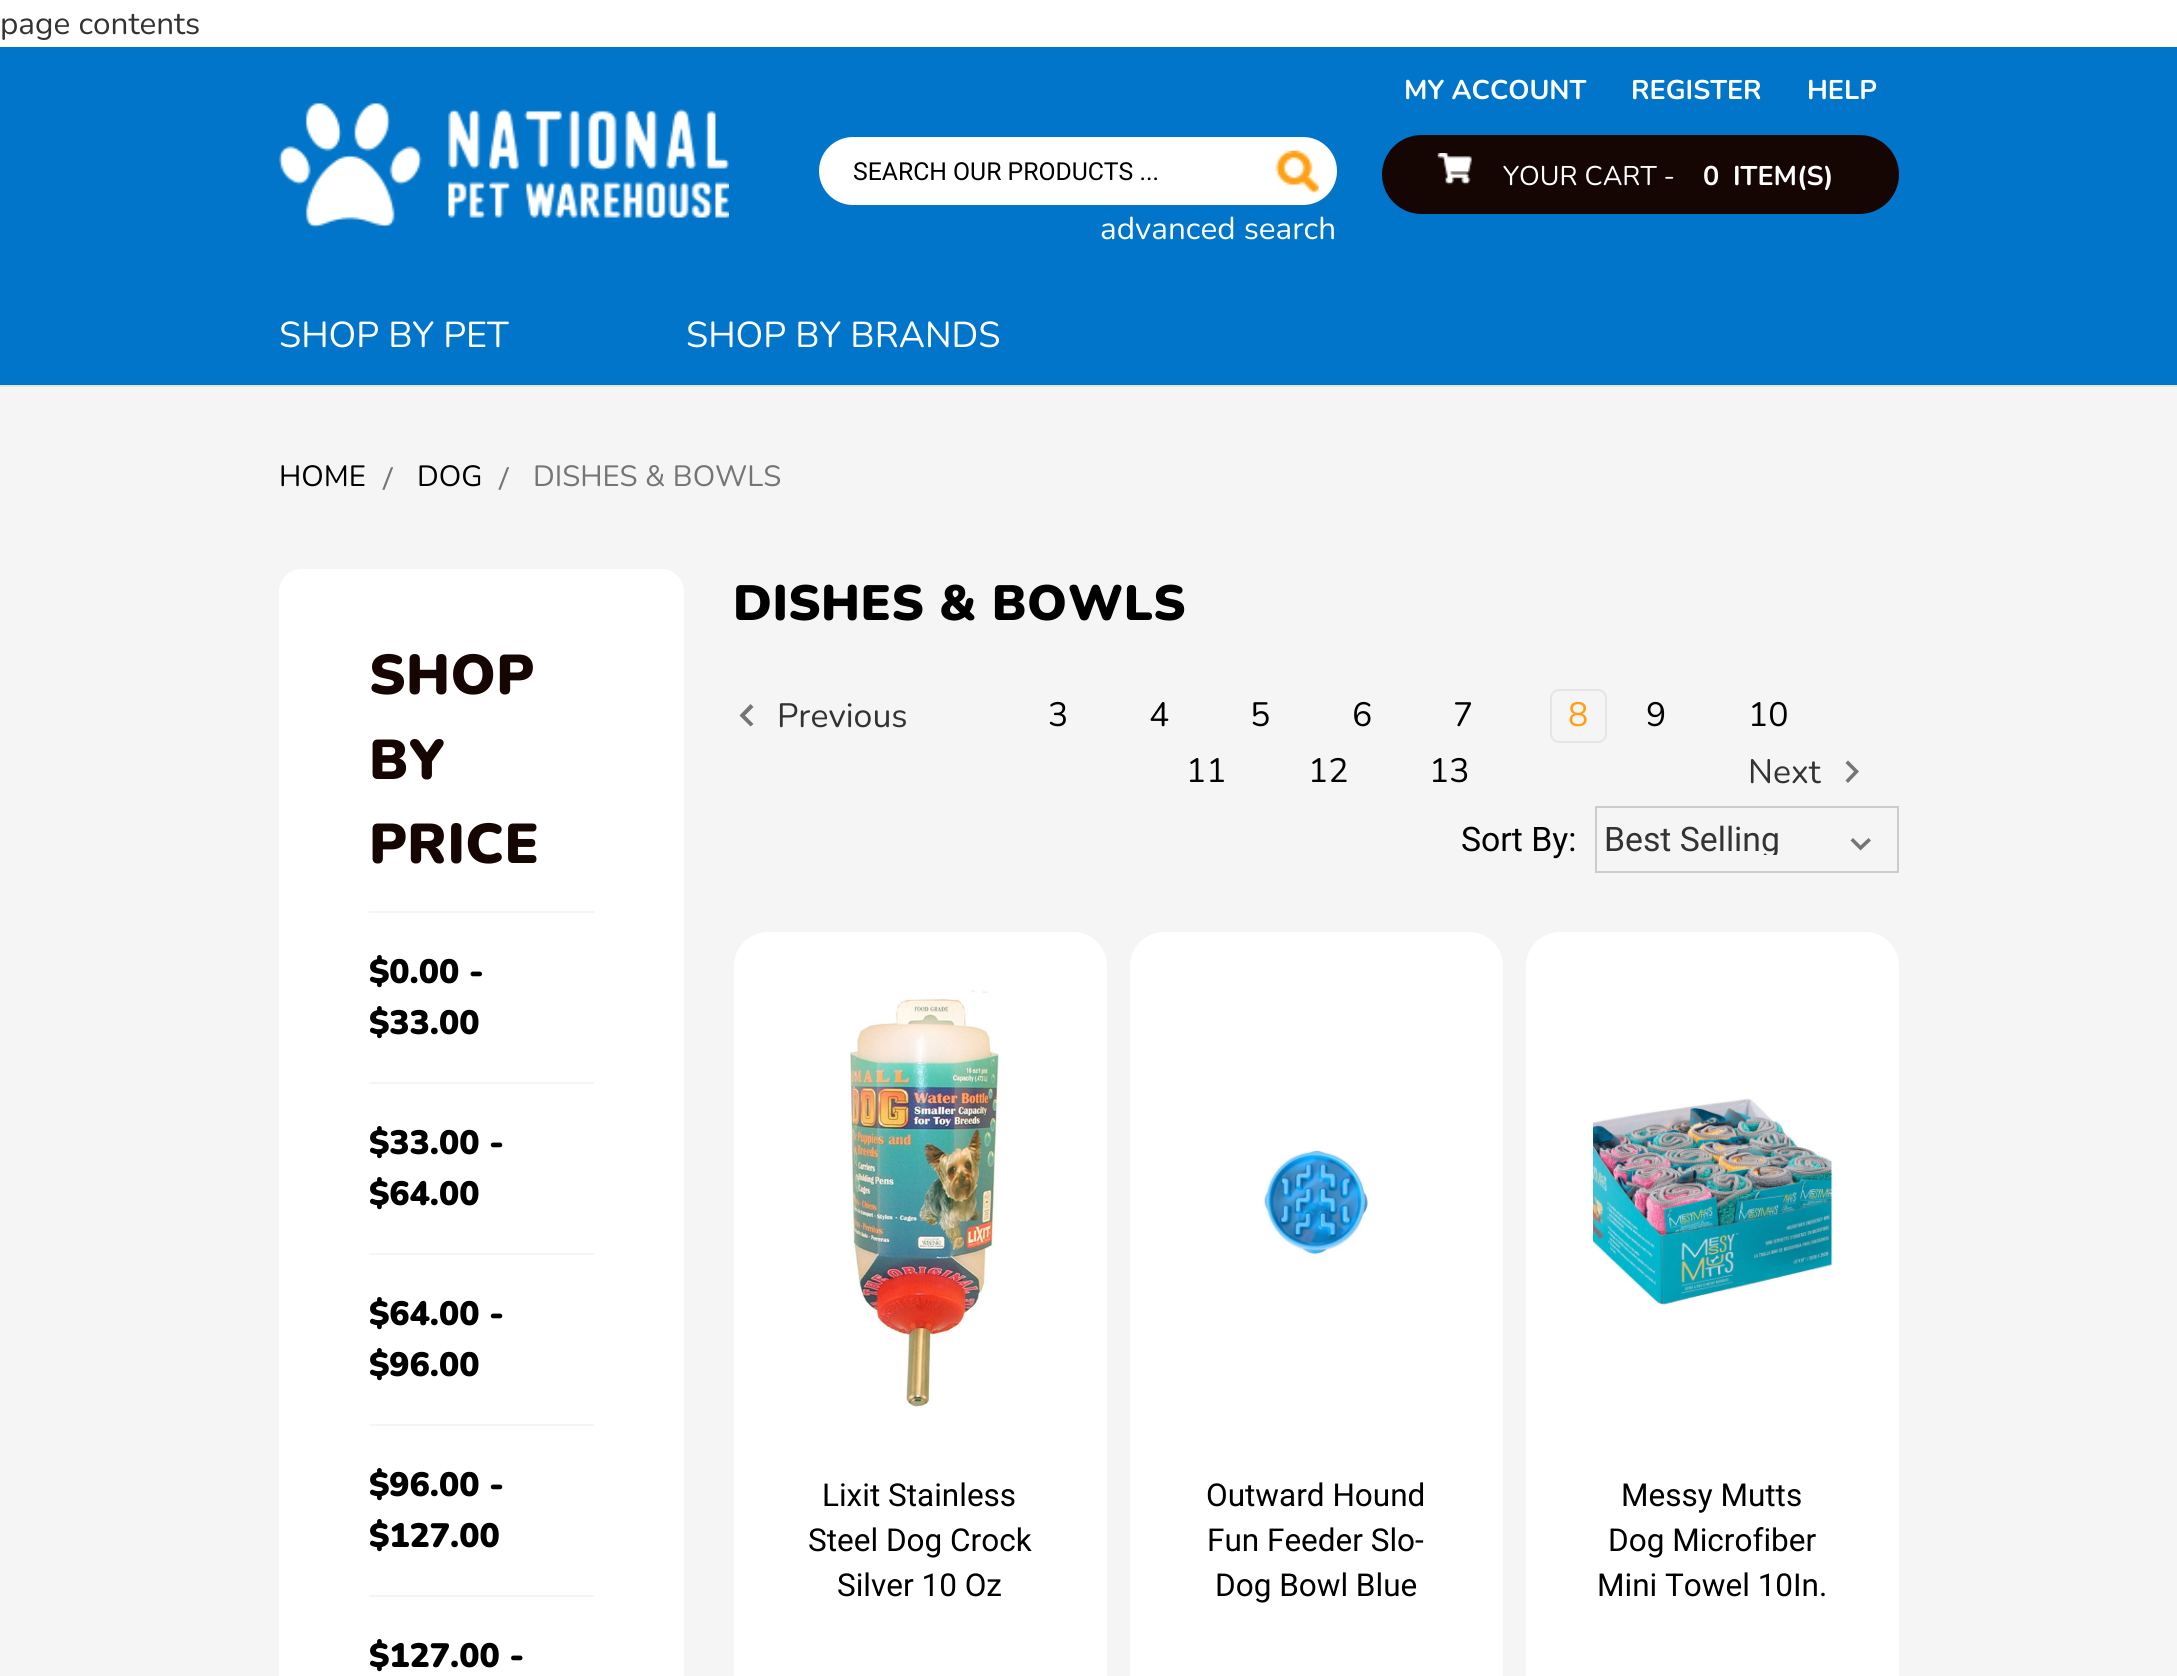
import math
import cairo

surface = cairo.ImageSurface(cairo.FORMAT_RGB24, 2177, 1676)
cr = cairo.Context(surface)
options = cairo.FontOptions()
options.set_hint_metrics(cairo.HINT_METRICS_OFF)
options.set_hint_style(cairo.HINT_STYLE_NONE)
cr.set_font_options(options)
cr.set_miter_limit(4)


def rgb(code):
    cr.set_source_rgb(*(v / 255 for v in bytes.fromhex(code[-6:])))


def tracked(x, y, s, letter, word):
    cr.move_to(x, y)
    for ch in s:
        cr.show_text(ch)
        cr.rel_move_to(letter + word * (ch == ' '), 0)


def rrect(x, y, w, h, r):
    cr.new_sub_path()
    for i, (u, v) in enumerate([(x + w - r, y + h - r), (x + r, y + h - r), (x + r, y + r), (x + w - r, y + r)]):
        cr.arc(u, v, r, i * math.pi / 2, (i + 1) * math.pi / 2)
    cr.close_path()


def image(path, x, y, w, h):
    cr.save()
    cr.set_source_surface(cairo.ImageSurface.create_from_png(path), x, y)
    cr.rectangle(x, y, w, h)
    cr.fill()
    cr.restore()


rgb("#ffffff")
cr.paint()
rgb("#0075c9")
cr.rectangle(0, 47, 2177, 338)
cr.fill()
rgb("#e5e5e5")
cr.rectangle(0, 385, 2177, 2)
cr.fill()
image("img/1.png", 279, 103, 450, 125)
rgb("#ffffff")
rrect(819, 137, 518, 68, 34)
cr.fill()
image("img/2.png", 1275, 150, 44, 44)
rgb("#160603")
rrect(1382, 135, 517, 79, 39.5)
cr.fill()
image("img/3.png", 1437, 153, 35, 32)
rgb("#f5f5f5")
cr.rectangle(0, 387, 2177, 1289)
cr.fill()
rgb("#ffffff")
rrect(279, 569, 405, 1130, 23)
cr.fill()
for x, y, w, h, color in [
    (369, 911, 225, 2, "#f5f5f5"),
    (369, 1082, 225, 2, "#f5f5f5"),
    (369, 1253, 225, 2, "#f5f5f5"),
    (369, 1424, 225, 2, "#f5f5f5"),
    (369, 1595, 225, 2, "#f5f5f5"),
]:
    rgb(color)
    cr.rectangle(x, y, w, h)
    cr.fill()
rgb("#757575")
cr.new_path()
cr.move_to(753.5, 707)
cr.line_to(750.5, 704)
cr.line_to(739.5, 715.5)
cr.line_to(750.5, 726.5)
cr.line_to(753.5, 724)
cr.line_to(745, 715.5)
cr.close_path()
cr.fill()
rrect(1551, 690, 55, 52, 8)
rgb("#e5e5e5")
cr.stroke()
rgb("#757575")
cr.new_path()
cr.move_to(1848, 760.5)
cr.line_to(1845.5, 763)
cr.line_to(1854, 771.5)
cr.line_to(1845.5, 780.5)
cr.line_to(1848, 783)
cr.line_to(1859, 771.5)
cr.close_path()
cr.fill()
cr.new_path()
cr.move_to(1868.5, 838)
cr.line_to(1860.5, 845.5)
cr.line_to(1853, 838)
cr.line_to(1850.5, 840.5)
cr.line_to(1860.5, 850.5)
cr.line_to(1871, 840.5)
cr.close_path()
cr.fill()
cr.rectangle(1596, 807, 302, 65)
rgb("#cccccc")
cr.stroke()
rgb("#ffffff")
rrect(734, 932, 373, 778, 34)
cr.fill()
image("img/4.png", 850, 990, 149, 418)
rrect(1130, 932, 373, 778, 34)
cr.fill()
image("img/5.png", 1262, 1150, 107, 105)
rrect(1526, 932, 373, 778, 34)
cr.fill()
image("img/6.png", 1593, 1098, 239, 208)
cr.select_font_face("Nunito")
cr.set_font_size(31.5)
rgb("#333333")
cr.move_to(0, 34)
cr.show_text("page contents")
cr.select_font_face("Roboto")
cr.set_font_size(24.75)
rgb("#000000")
cr.move_to(853, 180)
cr.show_text("SEARCH OUR PRODUCTS ...")
cr.select_font_face("Nunito")
cr.set_font_size(31.5)
rgb("#ffffff")
cr.move_to(1100, 239)
cr.show_text("advanced search")
cr.select_font_face("Nunito", cairo.FONT_SLANT_NORMAL, cairo.FONT_WEIGHT_BOLD)
cr.set_font_size(27)
for x, y, s in [
    (1404, 99, "MY ACCOUNT"),
    (1631, 99, "REGISTER"),
    (1807, 99, "HELP"),
]:
    cr.move_to(x, y)
    cr.show_text(s)
cr.select_font_face("Nunito")
cr.move_to(1503, 185)
cr.show_text("YOUR CART -")
cr.select_font_face("Nunito", cairo.FONT_SLANT_NORMAL, cairo.FONT_WEIGHT_BOLD)
cr.move_to(1703, 185)
cr.show_text("0")
cr.move_to(1733, 185)
cr.show_text("ITEM(S)")
cr.select_font_face("Nunito")
cr.set_font_size(36)
cr.move_to(279, 347)
cr.show_text("SHOP BY PET")
cr.move_to(686, 347)
cr.show_text("SHOP BY BRANDS")
cr.set_font_size(29.25)
rgb("#000000")
cr.move_to(279, 486)
cr.show_text("HOME")
cr.select_font_face("Roboto")
rgb("#757575")
cr.move_to(382, 488)
cr.show_text("/")
cr.select_font_face("Nunito")
rgb("#000000")
cr.move_to(417, 486)
cr.show_text("DOG")
cr.select_font_face("Roboto")
rgb("#757575")
cr.move_to(498, 488)
cr.show_text("/")
cr.select_font_face("Nunito")
cr.move_to(533, 486)
cr.show_text("DISHES & BOWLS")
cr.select_font_face("Nunito Black")
cr.set_font_size(56)
rgb("#160603")
for x, y, s in [
    (369, 694, "SHOP"),
    (369, 779, "BY"),
    (369, 863, "PRICE"),
]:
    tracked(x, y, s, 0.5, 0)
cr.set_font_size(33.75)
rgb("#000000")
for x, y, s in [
    (369, 983, "$0.00 -"),
    (369, 1034, "$33.00"),
    (369, 1154, "$33.00 -"),
    (369, 1205, "$64.00"),
    (369, 1325, "$64.00 -"),
    (369, 1376, "$96.00"),
    (369, 1496, "$96.00 -"),
    (369, 1547, "$127.00"),
    (369, 1667, "$127.00 -"),
]:
    cr.move_to(x, y)
    cr.show_text(s)
cr.set_font_size(49.5)
tracked(733, 620, "DISHES & BOWLS", 0.5, 0)
cr.select_font_face("Nunito")
cr.set_font_size(33.75)
rgb("#333333")
cr.move_to(777, 727)
cr.show_text("Previous")
rgb("#000000")
for x, y, s in [
    (1048, 726, "3"),
    (1149, 726, "4"),
    (1250, 726, "5"),
    (1352, 726, "6"),
    (1453, 726, "7"),
]:
    cr.move_to(x, y)
    cr.show_text(s)
rgb("#ffa014")
cr.move_to(1568, 726)
cr.show_text("8")
rgb("#000000")
for x, y, s in [
    (1646, 726, "9"),
    (1748, 726, "10"),
    (1186, 782, "11"),
    (1308, 782, "12"),
    (1429, 782, "13"),
]:
    cr.move_to(x, y)
    cr.show_text(s)
rgb("#333333")
cr.move_to(1748, 783)
cr.show_text("Next")
cr.select_font_face("Roboto")
rgb("#000000")
cr.move_to(1461, 851)
cr.show_text("Sort By:")
cr.save()
cr.rectangle(1604, 824, 270, 31)
cr.clip()
rgb("#333333")
cr.move_to(1604, 851)
cr.show_text("Best Selling")
cr.restore()
cr.set_font_size(31.5)
for x, y, s in [
    (822, 1506, "Lixit Stainless"),
    (808, 1551, "Steel Dog Crock"),
    (837, 1596, "Silver 10 Oz"),
    (1206, 1506, "Outward Hound"),
    (1207, 1551, "Fun Feeder Slo-"),
    (1215, 1596, "Dog Bowl Blue"),
    (1621, 1506, "Messy Mutts"),
    (1608, 1551, "Dog Microfiber"),
    (1597, 1596, "Mini Towel 10In."),
]:
    cr.move_to(x, y)
    cr.show_text(s)
surface.write_to_png("page.png")
